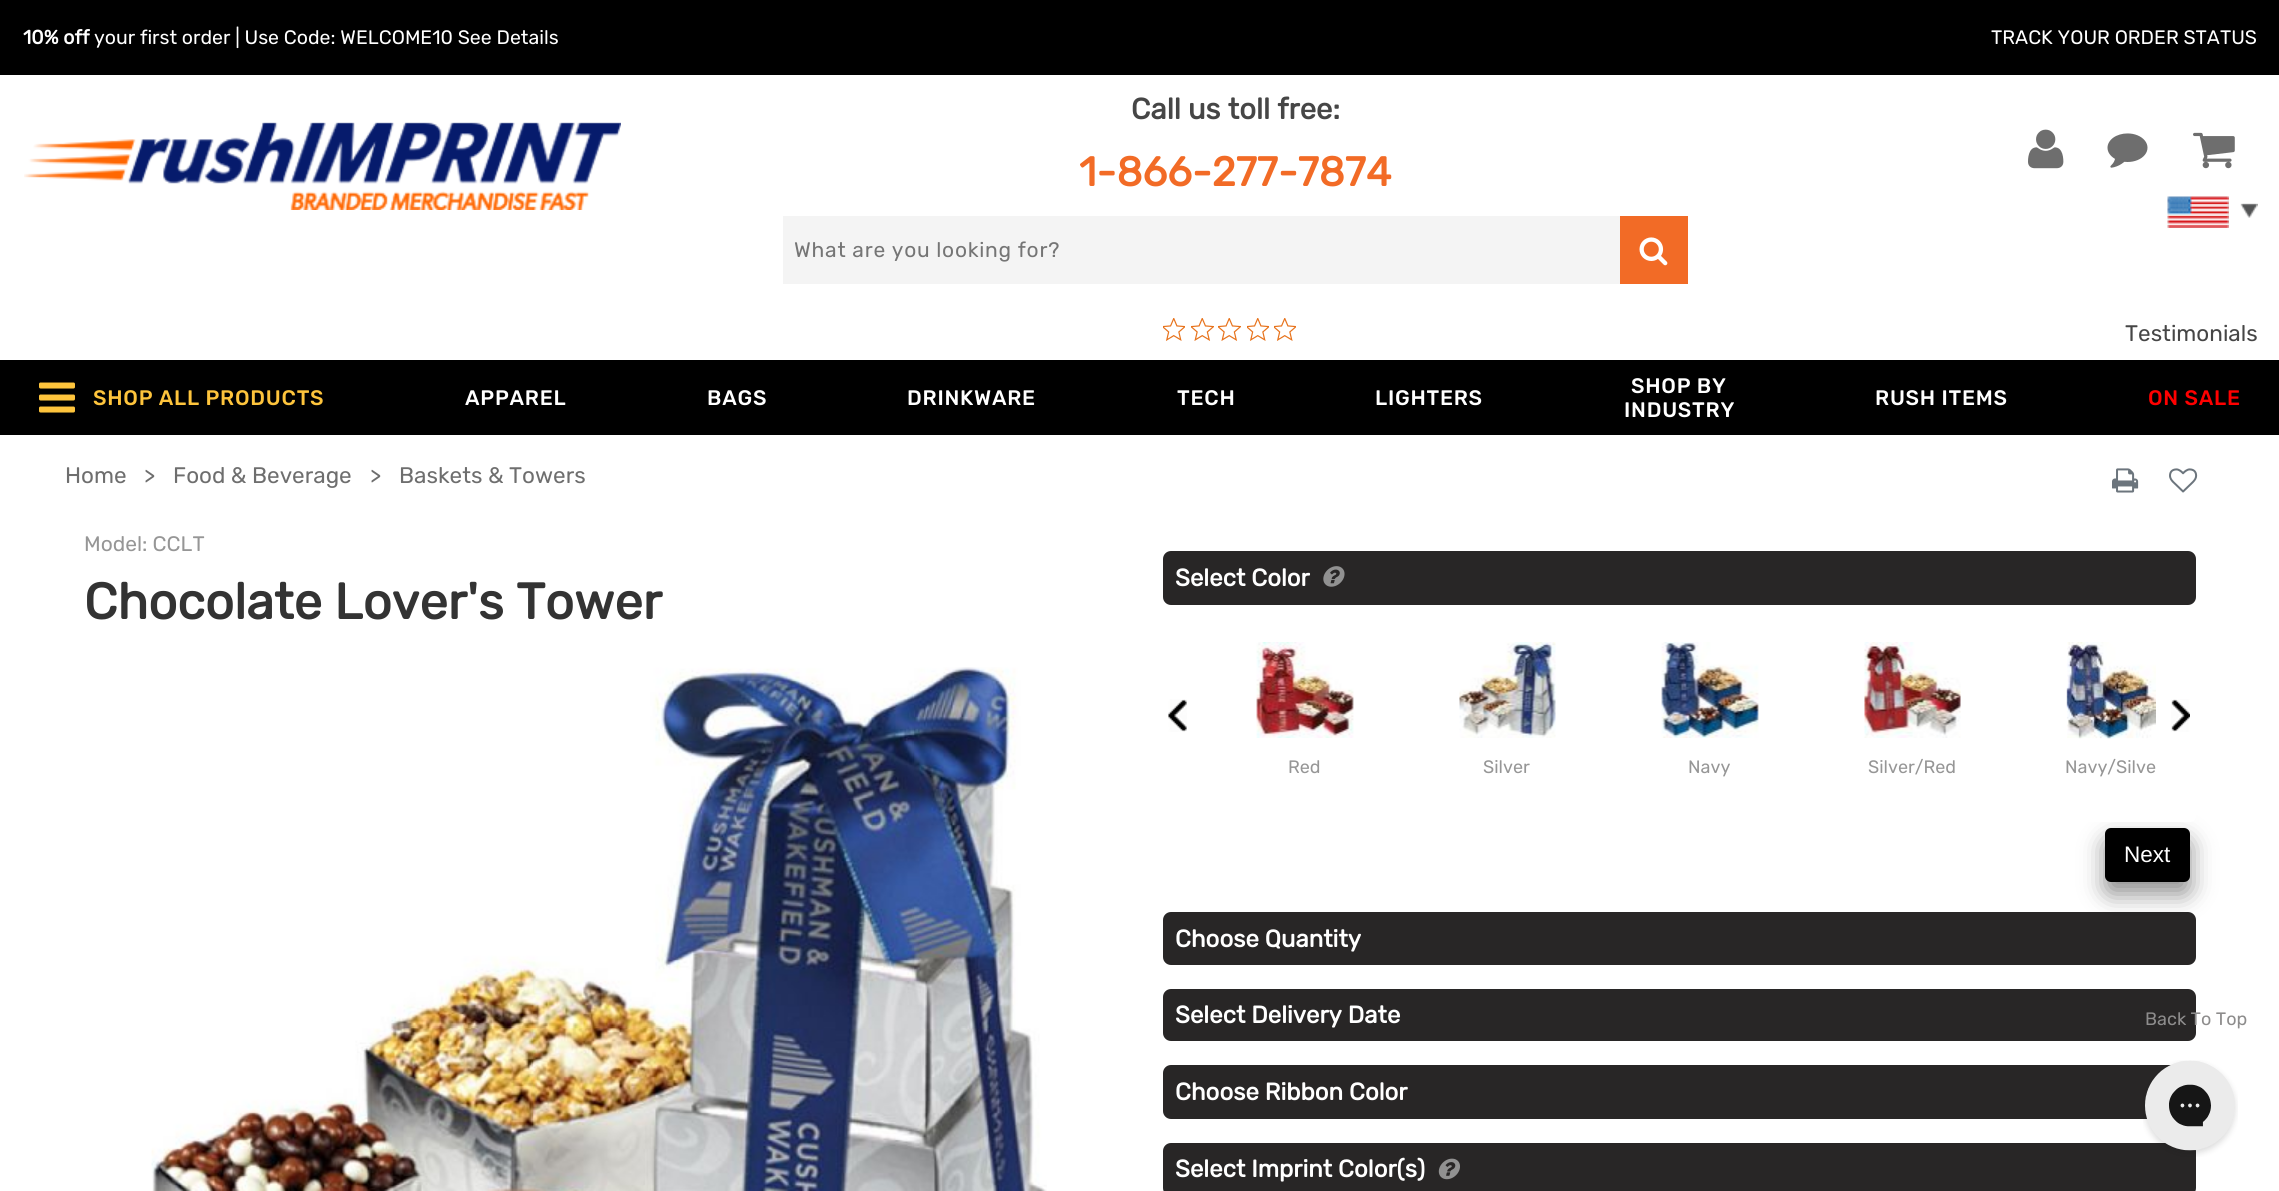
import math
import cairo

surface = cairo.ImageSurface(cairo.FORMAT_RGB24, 2279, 1191)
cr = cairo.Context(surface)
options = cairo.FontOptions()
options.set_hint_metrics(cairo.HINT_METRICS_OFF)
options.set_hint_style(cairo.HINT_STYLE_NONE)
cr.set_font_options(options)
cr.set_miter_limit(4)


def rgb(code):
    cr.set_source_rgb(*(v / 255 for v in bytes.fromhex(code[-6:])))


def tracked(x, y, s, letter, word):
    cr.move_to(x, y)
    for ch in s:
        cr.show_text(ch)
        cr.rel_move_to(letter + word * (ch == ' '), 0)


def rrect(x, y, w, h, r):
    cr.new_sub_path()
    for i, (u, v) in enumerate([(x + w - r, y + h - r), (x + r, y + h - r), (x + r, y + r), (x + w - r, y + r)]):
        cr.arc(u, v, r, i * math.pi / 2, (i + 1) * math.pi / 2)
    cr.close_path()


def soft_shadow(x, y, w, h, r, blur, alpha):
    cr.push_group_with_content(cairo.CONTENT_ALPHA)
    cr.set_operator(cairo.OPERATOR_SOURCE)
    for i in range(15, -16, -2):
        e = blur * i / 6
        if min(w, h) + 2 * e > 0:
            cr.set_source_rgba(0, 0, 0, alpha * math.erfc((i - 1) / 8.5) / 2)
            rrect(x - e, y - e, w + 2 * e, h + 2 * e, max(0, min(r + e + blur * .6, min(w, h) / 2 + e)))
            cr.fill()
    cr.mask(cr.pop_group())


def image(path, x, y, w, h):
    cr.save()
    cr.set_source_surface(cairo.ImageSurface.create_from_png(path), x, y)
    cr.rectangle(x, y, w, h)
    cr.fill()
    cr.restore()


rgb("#ffffff")
cr.paint()
rgb("#000000")
cr.rectangle(0, 0, 2279, 75)
cr.fill()
image("img/1.png", 24, 122, 597, 88)
rgb("#f4f4f4")
cr.rectangle(783, 216, 837, 68)
cr.fill()
rgb("#f26b26")
cr.rectangle(1620, 216, 68, 68)
cr.fill()
image("img/2.png", 1639, 237, 29, 29)
image("img/3.png", 2028, 129, 36, 40)
image("img/4.png", 2107, 133, 41, 35)
image("img/5.png", 2193, 132, 42, 37)
image("img/6.png", 2240, 203, 18, 15)
image("img/7.png", 2167, 196, 62, 32)
image("img/8.png", 1163, 318, 22, 23)
image("img/9.png", 1191, 318, 23, 23)
image("img/9.png", 1218, 318, 23, 23)
image("img/8.png", 1247, 318, 22, 23)
image("img/8.png", 1274, 318, 22, 23)
rgb("#000000")
cr.rectangle(0, 360, 2279, 75)
cr.fill()
image("img/10.png", 39, 382, 36, 31)
image("img/11.png", 2112, 468, 27, 25)
image("img/12.png", 2169, 468, 29, 25)
image("img/13.png", 151, 667, 896, 524)
rgb("#282626")
rrect(1163, 551, 1033, 54, 8)
cr.fill()
image("img/14.png", 1323, 566, 22, 21)
rrect(1163, 912, 1033, 53, 8)
cr.fill()
rgb("#000000")
soft_shadow(2105, 840, 85, 54, 6, 12, 0.45)
rgb("#ffffff")
rrect(1163, 617, 1033, 205, 6)
cr.fill()
image("img/15.png", 1168, 699, 19, 33)
image("img/16.png", 2171, 699, 19, 33)
image("img/17.png", 1256, 642, 98, 96)
image("img/18.png", 1459, 642, 97, 96)
image("img/19.png", 1661, 642, 98, 96)
image("img/20.png", 1864, 642, 97, 96)
image("img/21.png", 2066, 642, 90, 97)
rgb("#000000")
rrect(2106, 829, 83, 52, 5)
cr.fill_preserve()
cr.stroke()
rgb("#282626")
rrect(1163, 989, 1033, 52, 8)
cr.fill()
rrect(1163, 1065, 1033, 54, 8)
cr.fill()
rrect(1163, 1143, 1033, 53, 8)
cr.fill()
image("img/22.png", 1438, 1158, 22, 22)
image("img/23.png", 2143, 1060, 95, 97)
cr.select_font_face("Rubik", cairo.FONT_SLANT_NORMAL, cairo.FONT_WEIGHT_BOLD)
cr.set_font_size(19.5)
rgb("#ffffff")
cr.move_to(23, 44)
cr.show_text("10% off")
cr.select_font_face("Rubik")
cr.move_to(94, 44)
cr.show_text("your first order | Use Code: WELCOME10 See Details")
cr.move_to(1991, 44)
cr.show_text("TRACK YOUR ORDER STATUS")
cr.select_font_face("Rubik", cairo.FONT_SLANT_NORMAL, cairo.FONT_WEIGHT_BOLD)
cr.set_font_size(29.25)
rgb("#464646")
cr.move_to(1131, 119)
cr.show_text("Call us toll free:")
cr.set_font_size(41)
rgb("#f26b26")
cr.move_to(1079, 186)
cr.show_text("1-866-277-7874")
cr.select_font_face("Rubik")
cr.set_font_size(21)
rgb("#757575")
tracked(794, 257, "What are you looking for?", 0.75, 0)
cr.set_font_size(22.5)
rgb("#464646")
cr.move_to(2125, 341)
cr.show_text("Testimonials")
cr.select_font_face("Rubik Medium")
cr.set_font_size(21)
rgb("#fec43c")
tracked(93, 405, "SHOP ALL PRODUCTS", 0.75, 0)
rgb("#ffffff")
for x, y, s in [
    (465, 405, "APPAREL"),
    (707, 405, "BAGS"),
    (907, 405, "DRINKWARE"),
    (1177, 405, "TECH"),
    (1375, 405, "LIGHTERS"),
    (1631, 393, "SHOP BY"),
    (1624, 417, "INDUSTRY"),
    (1875, 405, "RUSH ITEMS"),
]:
    tracked(x, y, s, 0.75, 0)
rgb("#ff0000")
tracked(2148, 405, "ON SALE", 0.75, 0)
cr.select_font_face("Rubik")
cr.set_font_size(22.5)
rgb("#6e6e6e")
for x, y, s in [
    (65, 483, "Home"),
    (144, 483, ">"),
    (173, 483, "Food & Beverage"),
    (370, 483, ">"),
    (399, 483, "Baskets & Towers"),
]:
    cr.move_to(x, y)
    cr.show_text(s)
cr.set_font_size(21)
rgb("#969696")
cr.move_to(84, 551)
cr.show_text("Model: CCLT")
cr.select_font_face("Rubik", cairo.FONT_SLANT_NORMAL, cairo.FONT_WEIGHT_BOLD)
cr.set_font_size(50.4)
rgb("#333333")
cr.move_to(84, 619)
cr.show_text("Chocolate Lover's Tower")
cr.set_font_size(24)
rgb("#ffffff")
cr.move_to(1175, 586)
cr.show_text("Select Color")
cr.select_font_face("Rubik")
cr.set_font_size(18)
rgb("#969696")
for x, y, s in [
    (1288, 773, "Red"),
    (1483, 773, "Silver"),
    (1688, 773, "Navy"),
    (1868, 773, "Silver/Red"),
    (2065, 773, "Navy/Silve"),
]:
    cr.move_to(x, y)
    cr.show_text(s)
cr.select_font_face("Liberation Sans")
cr.set_font_size(22.5)
rgb("#ffffff")
cr.move_to(2124, 862)
cr.show_text("Next")
cr.select_font_face("Rubik", cairo.FONT_SLANT_NORMAL, cairo.FONT_WEIGHT_BOLD)
cr.set_font_size(24)
for x, y, s in [
    (1175, 947, "Choose Quantity"),
    (1175, 1023, "Select Delivery Date"),
    (1175, 1100, "Choose Ribbon Color"),
    (1175, 1177, "Select Imprint Color(s)"),
]:
    cr.move_to(x, y)
    cr.show_text(s)
cr.select_font_face("Rubik")
cr.set_font_size(18)
rgb("#8d8c8c")
cr.move_to(2145, 1025)
cr.show_text("Back To Top")
surface.write_to_png("page.png")
